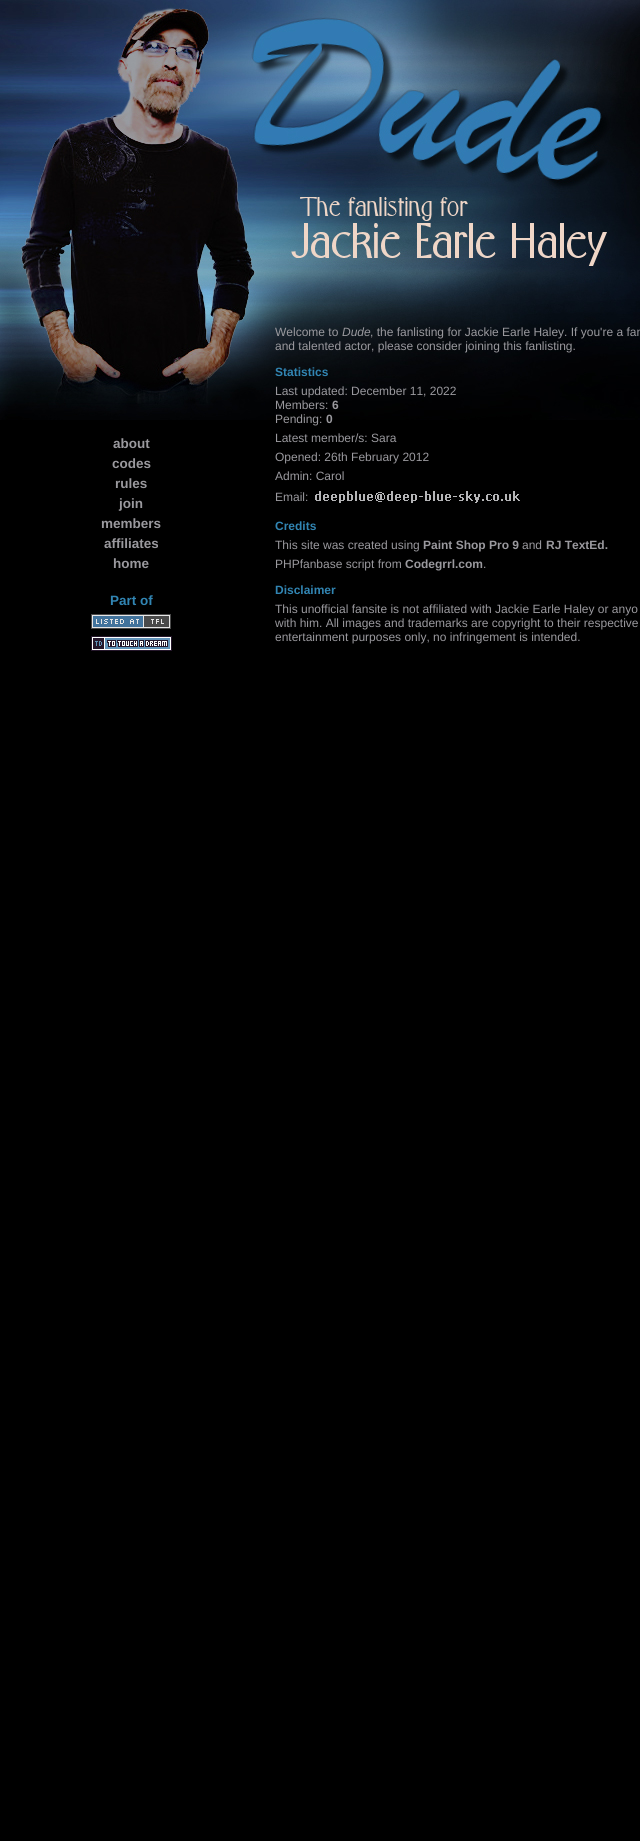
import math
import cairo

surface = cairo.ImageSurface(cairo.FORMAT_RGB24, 640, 1841)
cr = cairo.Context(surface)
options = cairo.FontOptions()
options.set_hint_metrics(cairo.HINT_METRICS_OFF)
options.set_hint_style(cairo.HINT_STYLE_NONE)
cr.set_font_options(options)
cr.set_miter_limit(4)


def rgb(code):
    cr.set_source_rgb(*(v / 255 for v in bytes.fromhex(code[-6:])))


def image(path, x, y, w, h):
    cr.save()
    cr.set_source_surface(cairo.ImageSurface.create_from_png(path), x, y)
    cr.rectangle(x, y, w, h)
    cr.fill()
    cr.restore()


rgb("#000000")
cr.paint()
image("img/1.png", 0, 0, 640, 420)
image("img/2.png", 91, 614, 80, 15)
image("img/3.png", 91, 636, 81, 15)
image("img/4.png", 315, 491, 205, 12)
cr.select_font_face("Liberation Sans", cairo.FONT_SLANT_NORMAL, cairo.FONT_WEIGHT_BOLD)
cr.set_font_size(13.5)
rgb("#9a999e")
for x, y, s in [
    (113, 448, "about"),
    (112, 468, "codes"),
    (115, 488, "rules"),
    (119, 508, "join"),
    (101, 528, "members"),
    (104, 548, "affiliates"),
    (113, 568, "home"),
]:
    cr.move_to(x, y)
    cr.show_text(s)
rgb("#3185b3")
cr.move_to(110, 605)
cr.show_text("Part of")
cr.select_font_face("Liberation Sans")
cr.set_font_size(12)
rgb("#9a999e")
cr.move_to(275, 336)
cr.show_text("Welcome to")
cr.select_font_face("Liberation Sans", cairo.FONT_SLANT_ITALIC)
cr.move_to(342, 336)
cr.show_text("Dude")
cr.select_font_face("Liberation Sans")
cr.move_to(370, 336)
cr.show_text(", the fanlisting for Jackie Earle Haley. If you're a fan")
cr.move_to(275, 350)
cr.show_text("and talented actor, please consider joining this fanlisting.")
cr.select_font_face("Liberation Sans", cairo.FONT_SLANT_NORMAL, cairo.FONT_WEIGHT_BOLD)
rgb("#3185b3")
cr.move_to(275, 376)
cr.show_text("Statistics")
cr.select_font_face("Liberation Sans")
rgb("#9a999e")
cr.move_to(275, 395)
cr.show_text("Last updated: December 11, 2022")
cr.move_to(275, 409)
cr.show_text("Members:")
cr.select_font_face("Liberation Sans", cairo.FONT_SLANT_NORMAL, cairo.FONT_WEIGHT_BOLD)
cr.move_to(332, 409)
cr.show_text("6")
cr.select_font_face("Liberation Sans")
cr.move_to(275, 423)
cr.show_text("Pending:")
cr.select_font_face("Liberation Sans", cairo.FONT_SLANT_NORMAL, cairo.FONT_WEIGHT_BOLD)
cr.move_to(326, 423)
cr.show_text("0")
cr.select_font_face("Liberation Sans")
for x, y, s in [
    (275, 442, "Latest member/s: Sara"),
    (275, 461, "Opened: 26th February 2012"),
    (275, 480, "Admin: Carol"),
    (275, 501, "Email:"),
]:
    cr.move_to(x, y)
    cr.show_text(s)
cr.select_font_face("Liberation Sans", cairo.FONT_SLANT_NORMAL, cairo.FONT_WEIGHT_BOLD)
rgb("#3185b3")
cr.move_to(275, 530)
cr.show_text("Credits")
cr.select_font_face("Liberation Sans")
rgb("#9a999e")
cr.move_to(275, 549)
cr.show_text("This site was created using")
cr.select_font_face("Liberation Sans", cairo.FONT_SLANT_NORMAL, cairo.FONT_WEIGHT_BOLD)
cr.move_to(423, 549)
cr.show_text("Paint Shop Pro 9")
cr.select_font_face("Liberation Sans")
cr.move_to(522, 549)
cr.show_text("and")
cr.select_font_face("Liberation Sans", cairo.FONT_SLANT_NORMAL, cairo.FONT_WEIGHT_BOLD)
cr.move_to(546, 549)
cr.show_text("RJ TextEd.")
cr.select_font_face("Liberation Sans")
cr.move_to(275, 568)
cr.show_text("PHPfanbase script from")
cr.select_font_face("Liberation Sans", cairo.FONT_SLANT_NORMAL, cairo.FONT_WEIGHT_BOLD)
cr.move_to(405, 568)
cr.show_text("Codegrrl.com")
cr.select_font_face("Liberation Sans")
cr.move_to(483, 568)
cr.show_text(".")
cr.select_font_face("Liberation Sans", cairo.FONT_SLANT_NORMAL, cairo.FONT_WEIGHT_BOLD)
rgb("#3185b3")
cr.move_to(275, 594)
cr.show_text("Disclaimer")
cr.select_font_face("Liberation Sans")
rgb("#9a999e")
for x, y, s in [
    (275, 613, "This unofficial fansite is not affiliated with Jackie Earle Haley or anyo"),
    (275, 627, "with him. All images and trademarks are copyright to their respective"),
    (275, 641, "entertainment purposes only, no infringement is intended."),
]:
    cr.move_to(x, y)
    cr.show_text(s)
surface.write_to_png("page.png")
